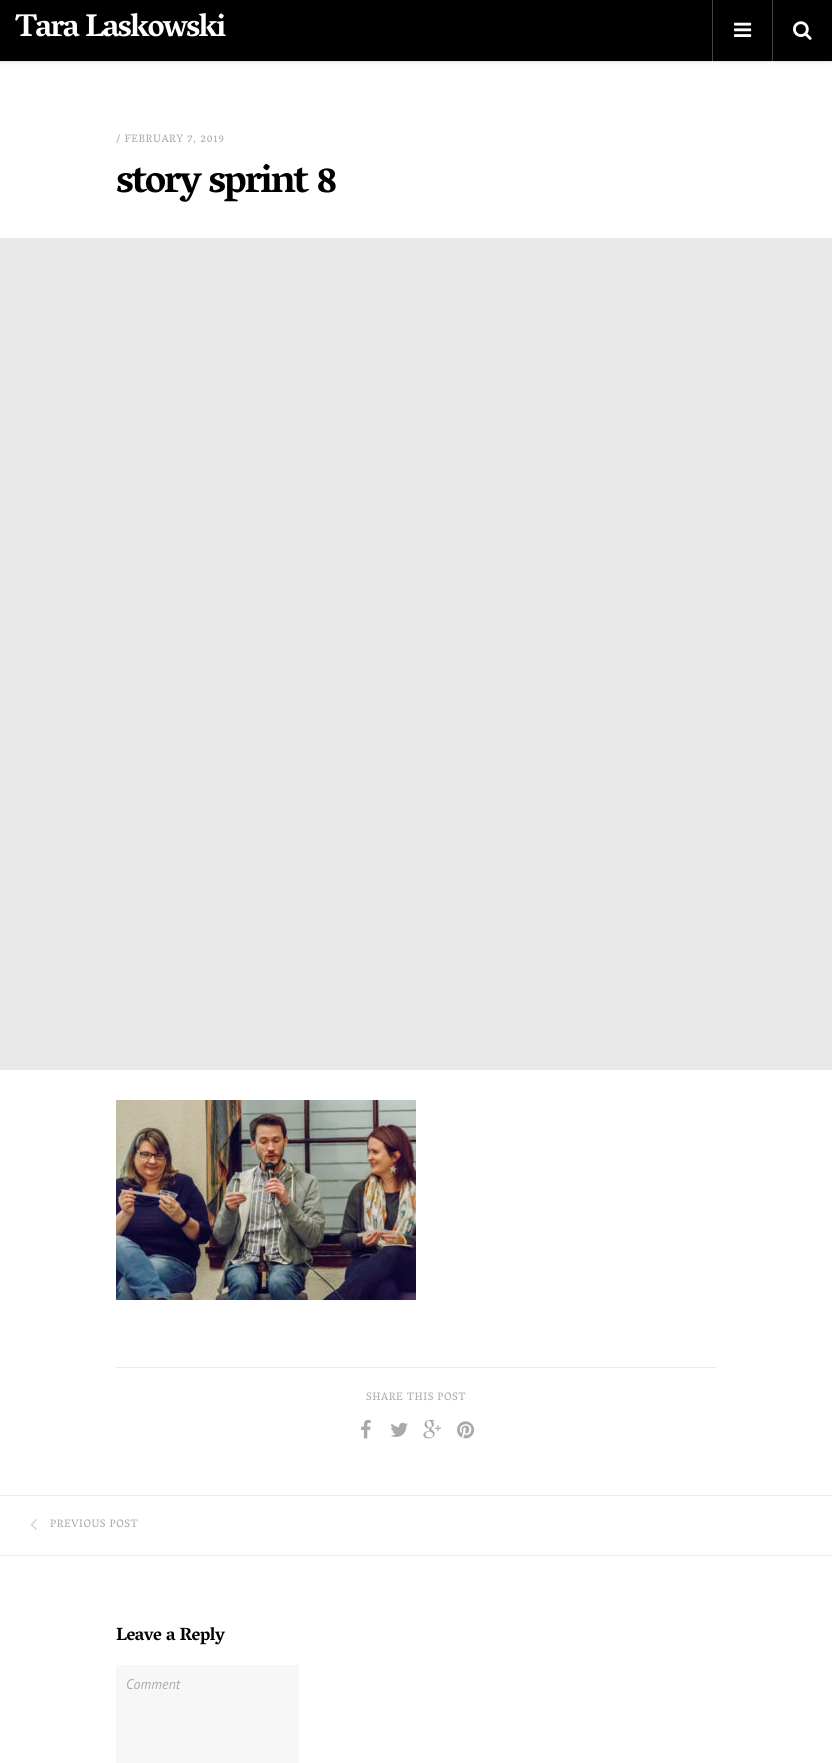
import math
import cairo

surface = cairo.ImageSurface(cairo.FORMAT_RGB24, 832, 1763)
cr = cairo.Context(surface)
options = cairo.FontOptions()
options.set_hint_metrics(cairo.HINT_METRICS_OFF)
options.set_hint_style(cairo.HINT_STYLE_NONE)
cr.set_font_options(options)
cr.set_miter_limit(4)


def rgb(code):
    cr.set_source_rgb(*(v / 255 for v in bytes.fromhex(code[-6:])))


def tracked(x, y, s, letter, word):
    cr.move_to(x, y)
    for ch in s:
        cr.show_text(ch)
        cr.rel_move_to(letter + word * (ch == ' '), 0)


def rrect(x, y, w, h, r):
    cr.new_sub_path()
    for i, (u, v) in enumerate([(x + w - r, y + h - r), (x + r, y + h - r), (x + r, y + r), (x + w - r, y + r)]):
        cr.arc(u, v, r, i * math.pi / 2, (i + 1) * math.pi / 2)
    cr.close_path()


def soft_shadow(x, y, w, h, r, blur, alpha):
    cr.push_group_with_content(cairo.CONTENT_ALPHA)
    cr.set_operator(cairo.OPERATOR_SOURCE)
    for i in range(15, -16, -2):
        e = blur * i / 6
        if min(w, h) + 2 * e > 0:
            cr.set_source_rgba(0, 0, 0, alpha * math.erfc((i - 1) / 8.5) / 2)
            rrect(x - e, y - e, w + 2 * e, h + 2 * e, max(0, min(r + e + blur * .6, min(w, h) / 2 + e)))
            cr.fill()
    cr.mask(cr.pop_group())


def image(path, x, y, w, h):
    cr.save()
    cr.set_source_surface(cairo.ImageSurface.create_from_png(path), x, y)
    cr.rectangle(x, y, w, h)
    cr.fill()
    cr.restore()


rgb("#ffffff")
cr.paint()
rgb("#000000")
soft_shadow(0, 1, 832, 61, 0, 2.5, 0.1)
cr.set_source_rgba(0, 0, 0, 0.05)
cr.rectangle(0, 61, 832, 1)
cr.fill()
rgb("#000000")
cr.rectangle(0, 0, 832, 61)
cr.fill()
rgb("#444444")
cr.rectangle(712, 0, 1, 61)
cr.fill()
image("img/1.png", 734, 22, 18, 15)
cr.rectangle(772, 0, 1, 61)
cr.fill()
image("img/2.png", 793, 21, 19, 19)
rgb("#e9e9e9")
cr.rectangle(0, 238, 832, 832)
cr.fill()
image("img/3.png", 116, 1100, 300, 200)
cr.rectangle(116, 1367, 600, 1)
cr.fill()
image("img/4.png", 361, 1419, 10, 20)
image("img/5.png", 390, 1422, 18, 15)
image("img/6.png", 423, 1419, 18, 20)
image("img/7.png", 457, 1421, 18, 18)
cr.rectangle(0, 1495, 832, 1)
cr.fill()
cr.rectangle(0, 1555, 832, 1)
cr.fill()
image("img/8.png", 30, 1519, 7, 11)
rgb("#f7f7f7")
cr.rectangle(116, 1665, 183, 98)
cr.fill()
cr.select_font_face("Vesper Libre", cairo.FONT_SLANT_NORMAL, cairo.FONT_WEIGHT_BOLD)
cr.set_font_size(32)
rgb("#ffffff")
tracked(15, 36, "Tara Laskowski", -1.9, 0)
cr.select_font_face("Vesper Libre")
cr.set_font_size(11)
rgb("#aaaaaa")
tracked(116, 142, "/ FEBRUARY 7, 2019", 0.5, 0)
cr.select_font_face("Vesper Libre", cairo.FONT_SLANT_NORMAL, cairo.FONT_WEIGHT_BOLD)
cr.set_font_size(40)
rgb("#000000")
tracked(116, 192, "story sprint 8", -2.4, 0)
cr.select_font_face("Vesper Libre")
cr.set_font_size(11)
rgb("#aaaaaa")
tracked(366, 1400, "SHARE THIS POST", 0.5, 0)
tracked(50, 1527, "PREVIOUS POST", 0.5, 0)
cr.select_font_face("Vesper Libre", cairo.FONT_SLANT_NORMAL, cairo.FONT_WEIGHT_BOLD)
cr.set_font_size(18)
rgb("#000000")
tracked(116, 1640, "Leave a Reply", -0.5, 0)
cr.select_font_face("PT Sans", cairo.FONT_SLANT_ITALIC)
cr.set_font_size(14)
rgb("#aaaaaa")
cr.move_to(126, 1689)
cr.show_text("Comment")
surface.write_to_png("page.png")
